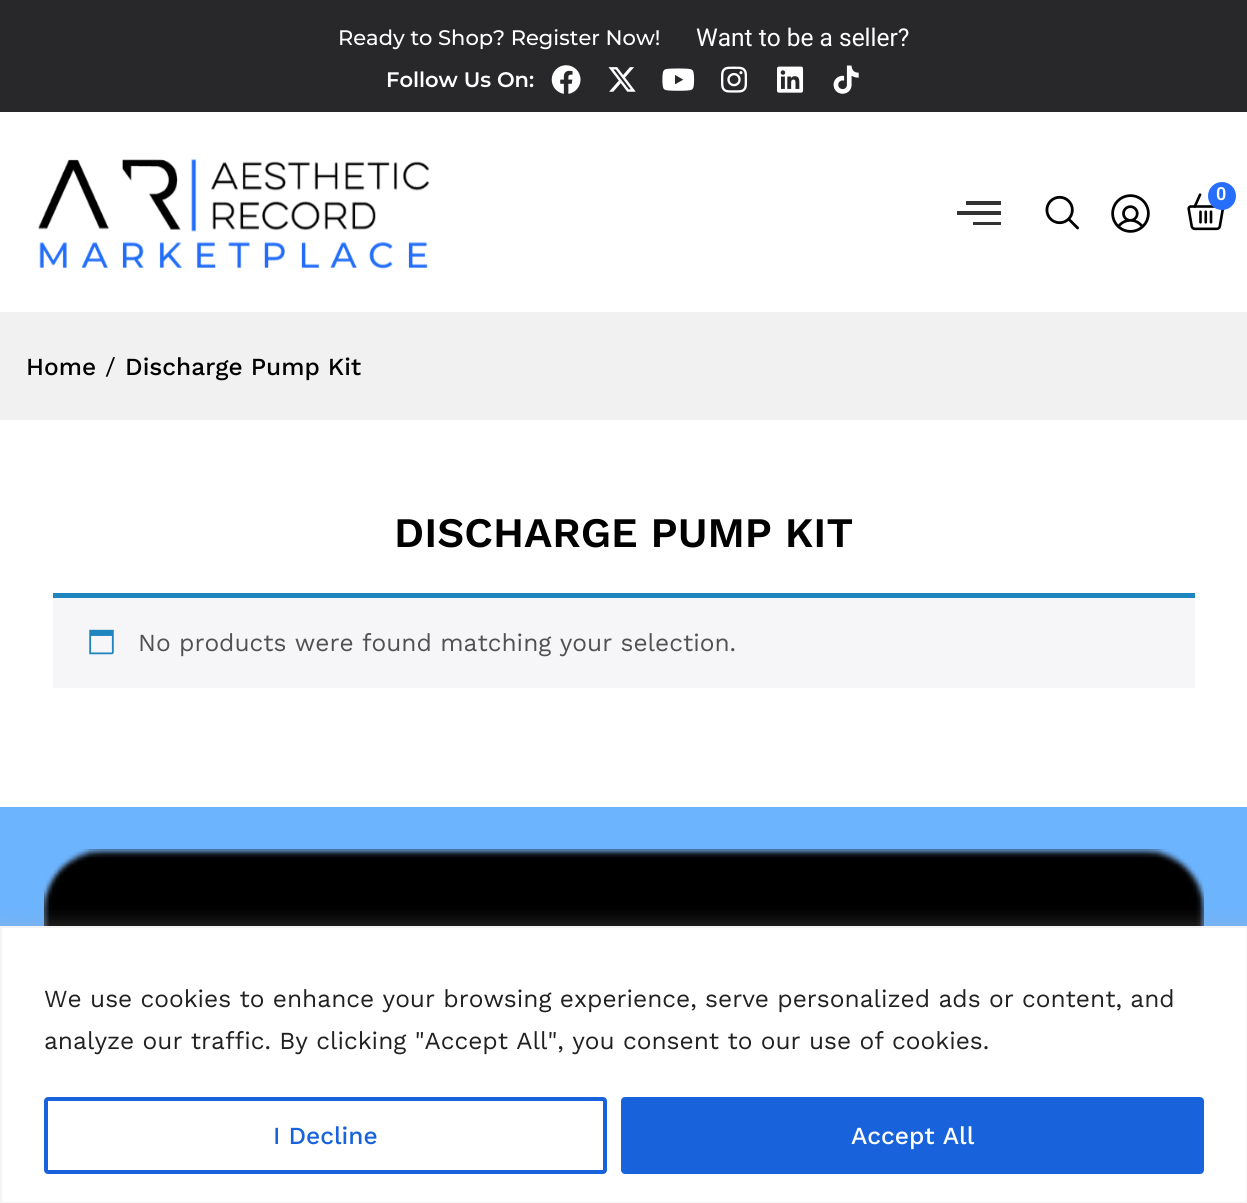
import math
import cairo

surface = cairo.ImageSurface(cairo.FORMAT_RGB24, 1247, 1203)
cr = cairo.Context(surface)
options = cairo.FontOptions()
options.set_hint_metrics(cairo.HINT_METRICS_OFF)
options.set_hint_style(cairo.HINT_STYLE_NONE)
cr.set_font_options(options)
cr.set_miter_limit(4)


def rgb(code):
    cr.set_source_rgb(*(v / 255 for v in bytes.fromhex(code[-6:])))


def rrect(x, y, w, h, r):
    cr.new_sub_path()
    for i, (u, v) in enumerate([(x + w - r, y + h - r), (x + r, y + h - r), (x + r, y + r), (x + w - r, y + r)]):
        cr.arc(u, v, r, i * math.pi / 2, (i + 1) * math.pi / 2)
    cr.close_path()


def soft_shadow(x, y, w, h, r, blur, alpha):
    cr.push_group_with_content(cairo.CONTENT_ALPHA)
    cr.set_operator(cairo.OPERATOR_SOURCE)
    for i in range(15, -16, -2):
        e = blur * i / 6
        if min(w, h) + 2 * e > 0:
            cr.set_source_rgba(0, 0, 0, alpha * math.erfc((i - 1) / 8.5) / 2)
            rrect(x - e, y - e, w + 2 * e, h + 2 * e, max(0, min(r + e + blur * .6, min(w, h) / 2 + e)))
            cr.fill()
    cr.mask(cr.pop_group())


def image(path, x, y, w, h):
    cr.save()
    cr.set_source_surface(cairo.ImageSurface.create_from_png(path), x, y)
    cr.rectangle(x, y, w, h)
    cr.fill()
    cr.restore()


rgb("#ffffff")
cr.paint()
rgb("#28282a")
cr.rectangle(0, 0, 1247, 112)
cr.fill()
image("img/1.png", 551, 65, 30, 29)
image("img/2.png", 608, 67, 28, 25)
image("img/3.png", 662, 68, 33, 23)
image("img/4.png", 721, 66, 27, 27)
image("img/5.png", 777, 66, 27, 27)
image("img/6.png", 833, 65, 26, 29)
image("img/7.png", 38, 159, 392, 110)
rgb("#333333")
cr.new_path()
cr.move_to(957, 215)
cr.line_to(1001, 215)
cr.line_to(1001, 211)
cr.line_to(957, 211)
cr.close_path()
cr.move_to(973, 225)
cr.line_to(1001, 225)
cr.line_to(1001, 222)
cr.line_to(973, 222)
cr.close_path()
cr.move_to(966, 201)
cr.line_to(966, 205)
cr.line_to(1001, 205)
cr.line_to(1001, 201)
cr.close_path()
cr.fill()
image("img/8.png", 1045, 195, 34, 35)
image("img/9.png", 1111, 194, 39, 39)
image("img/10.png", 1187, 193, 38, 38)
rgb("#276efa")
cr.arc(1222, 196, 14, 0, 2 * math.pi)
cr.fill()
for x, y, w, h, color in [
    (0, 312, 1247, 108, "#f1f1f1"),
    (53, 598, 1142, 90, "#f6f5f8"),
    (53, 593, 1142, 5, "#1e85be"),
]:
    rgb(color)
    cr.rectangle(x, y, w, h)
    cr.fill()
image("img/11.png", 89, 629, 25, 26)
rgb("#6cb4fe")
cr.rectangle(0, 807, 1247, 119)
cr.fill()
image("img/12.png", 44, 849, 1160, 77)
rgb("#acabab")
soft_shadow(0, 924, 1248, 278, 0, 9, 0.3)
rgb("#ffffff")
cr.rectangle(1, 927, 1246, 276)
cr.fill_preserve()
rgb("#f4f4f4")
cr.stroke()
rrect(46, 1099, 559, 73, 2)
rgb("#1863dc")
cr.set_line_width(4)
cr.stroke()
rrect(623, 1099, 579, 73, 2)
cr.fill_preserve()
cr.stroke()
cr.select_font_face("Montserrat Medium")
cr.set_font_size(21)
rgb("#ffffff")
cr.move_to(338, 45)
cr.show_text("Ready to Shop? Register Now!")
cr.select_font_face("Roboto")
cr.set_font_size(24.5)
cr.move_to(696, 46)
cr.show_text("Want to be a seller?")
cr.select_font_face("Montserrat SemiBold")
cr.set_font_size(21)
cr.move_to(386, 87)
cr.show_text("Follow Us On:")
cr.select_font_face("Roboto SemiBold")
cr.set_font_size(18)
cr.move_to(1216, 200)
cr.show_text("0")
cr.select_font_face("Work Sans Medium")
cr.set_font_size(24.5)
rgb("#000000")
cr.move_to(26, 375)
cr.show_text("Home")
cr.select_font_face("Work Sans")
cr.move_to(105, 375)
cr.show_text("/")
cr.select_font_face("Work Sans Medium")
cr.move_to(125, 375)
cr.show_text("Discharge Pump Kit")
cr.select_font_face("Work Sans SemiBold")
cr.set_font_size(42)
cr.move_to(394, 547)
cr.show_text("DISCHARGE PUMP KIT")
cr.select_font_face("Work Sans")
cr.set_font_size(24.5)
rgb("#515151")
cr.move_to(138, 651)
cr.show_text("No products were found matching your selection.")
rgb("#212121")
cr.move_to(44, 1007)
cr.show_text("We use cookies to enhance your browsing experience, serve personalized ads or content, and")
cr.move_to(44, 1049)
cr.show_text("analyze our traffic. By clicking \"Accept All\", you consent to our use of cookies.")
cr.select_font_face("Work Sans Medium")
rgb("#1863dc")
cr.move_to(273, 1144)
cr.show_text("I Decline")
rgb("#ffffff")
cr.move_to(851, 1144)
cr.show_text("Accept All")
surface.write_to_png("page.png")
